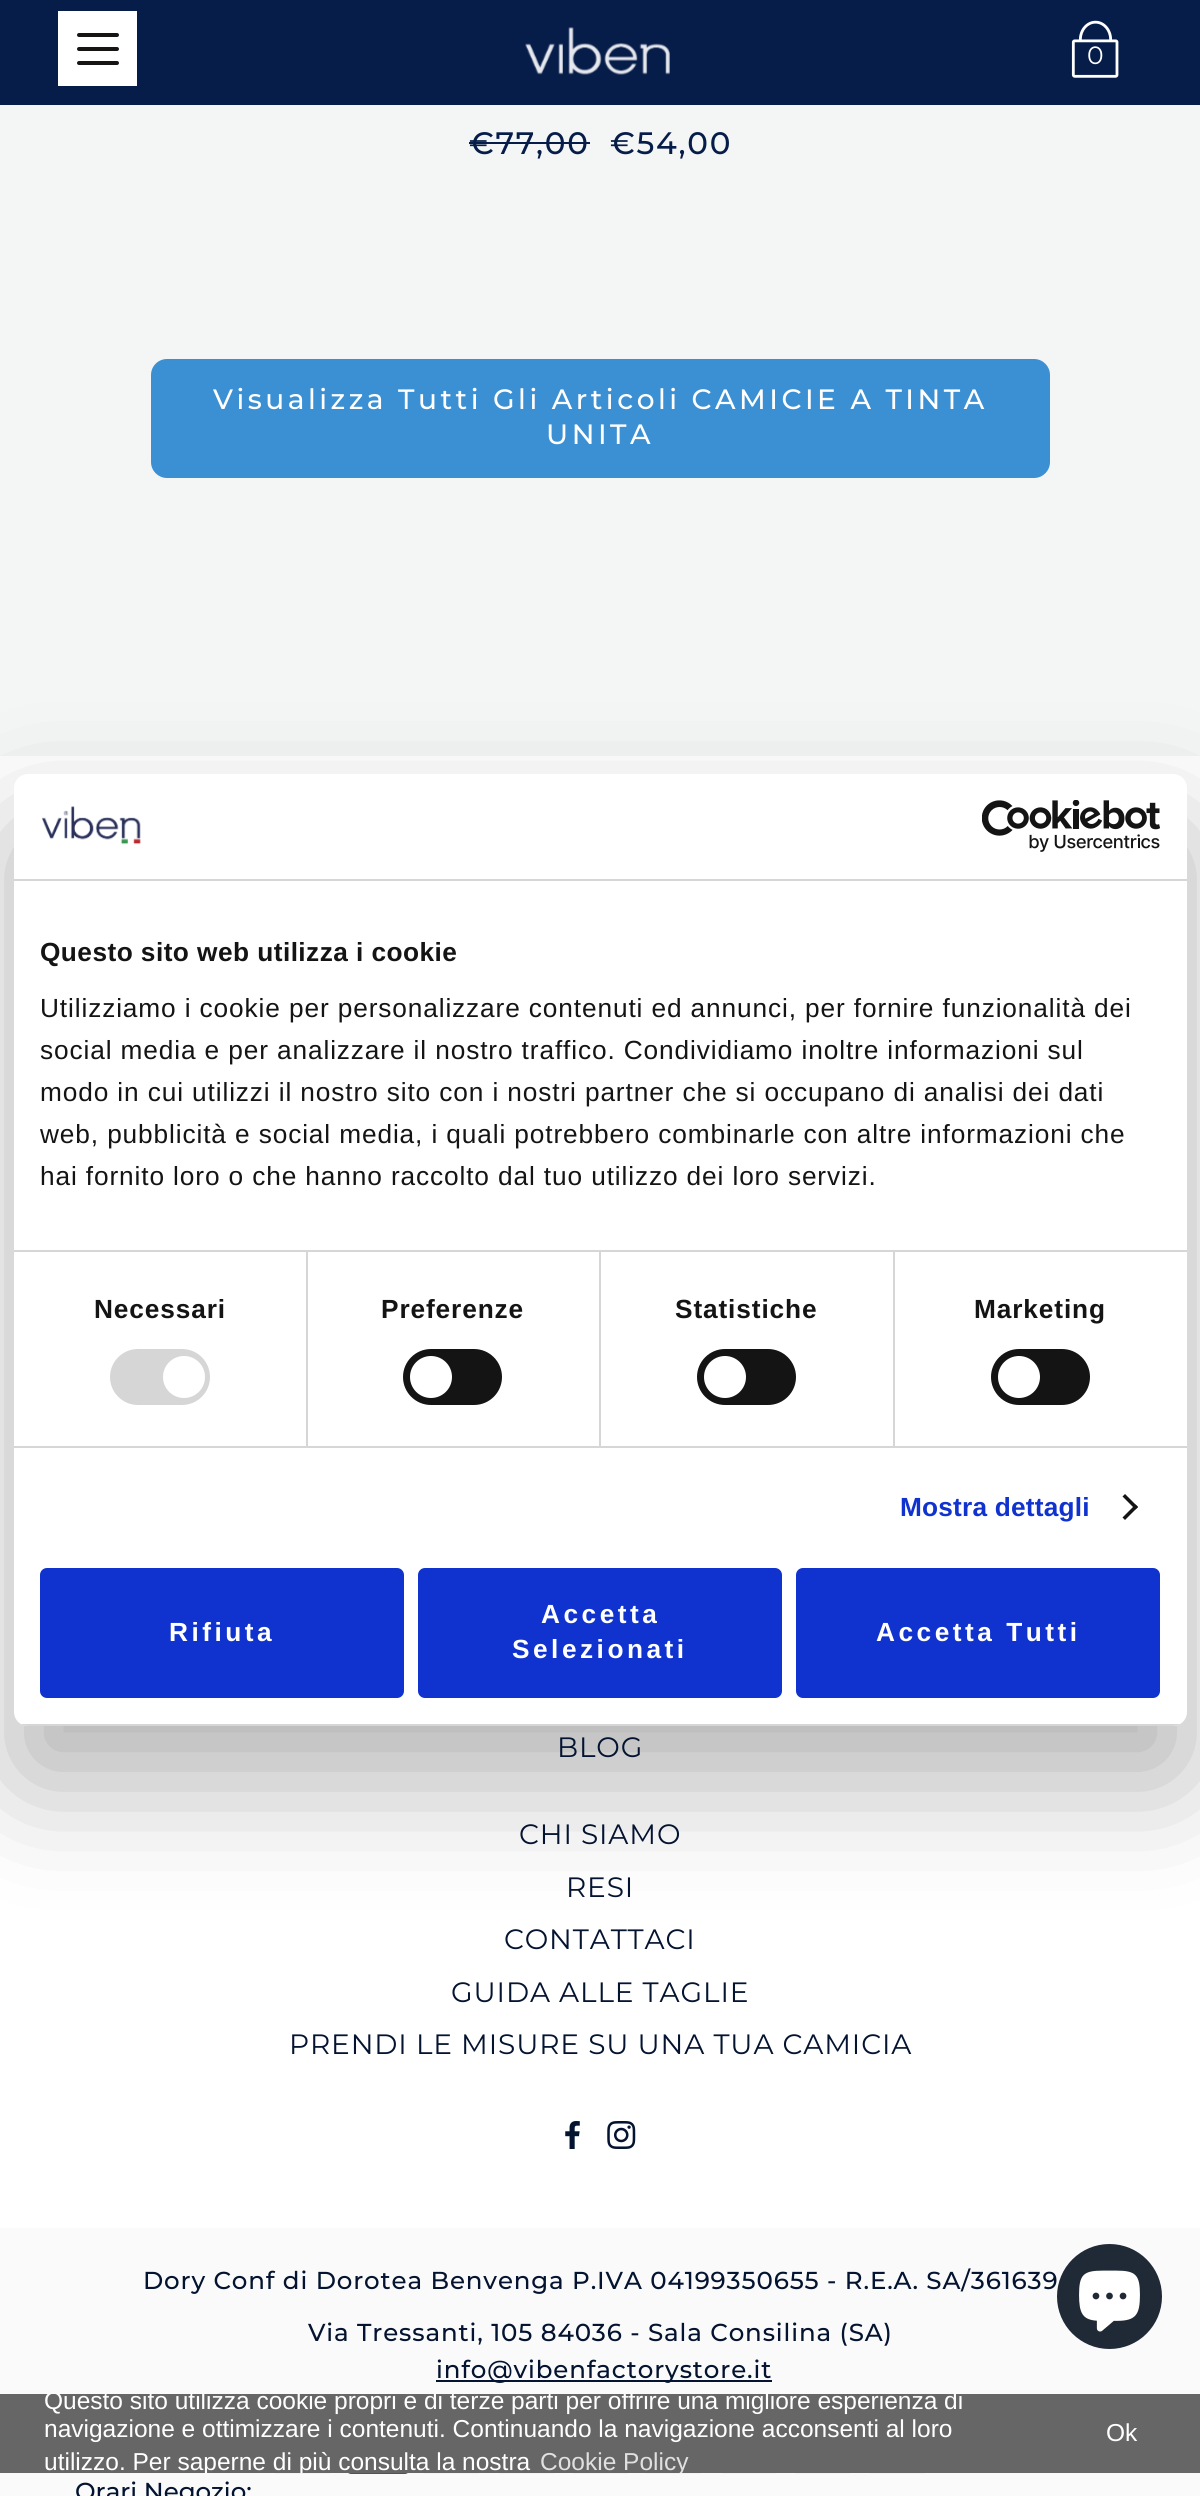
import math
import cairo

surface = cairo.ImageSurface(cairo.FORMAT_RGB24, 1200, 2496)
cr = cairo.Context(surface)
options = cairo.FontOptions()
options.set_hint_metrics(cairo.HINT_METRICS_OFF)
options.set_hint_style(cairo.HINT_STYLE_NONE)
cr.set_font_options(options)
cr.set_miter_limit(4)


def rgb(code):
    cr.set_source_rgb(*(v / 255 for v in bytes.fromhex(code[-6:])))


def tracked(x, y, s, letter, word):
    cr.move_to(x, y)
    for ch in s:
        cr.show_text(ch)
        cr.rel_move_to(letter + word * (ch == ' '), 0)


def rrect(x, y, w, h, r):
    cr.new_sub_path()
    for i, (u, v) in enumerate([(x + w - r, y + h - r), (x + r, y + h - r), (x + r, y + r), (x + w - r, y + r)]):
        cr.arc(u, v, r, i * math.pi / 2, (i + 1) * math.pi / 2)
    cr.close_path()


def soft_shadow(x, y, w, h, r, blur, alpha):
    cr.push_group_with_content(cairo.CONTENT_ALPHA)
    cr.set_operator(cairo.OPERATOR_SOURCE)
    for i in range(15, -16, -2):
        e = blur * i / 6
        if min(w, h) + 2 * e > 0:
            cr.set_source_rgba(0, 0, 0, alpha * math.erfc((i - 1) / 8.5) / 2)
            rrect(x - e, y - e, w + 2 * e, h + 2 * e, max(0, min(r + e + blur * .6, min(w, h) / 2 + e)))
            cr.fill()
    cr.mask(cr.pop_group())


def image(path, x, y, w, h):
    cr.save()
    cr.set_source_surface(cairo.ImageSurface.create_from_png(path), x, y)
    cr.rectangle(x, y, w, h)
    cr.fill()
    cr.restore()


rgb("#f4f5f5")
cr.paint()
rgb("#071d49")
cr.rectangle(0, 0, 1200, 105)
cr.fill()
image("img/1.png", 525, 27, 145, 48)
rgb("#ffffff")
cr.rectangle(58, 11, 79, 75)
cr.fill()
rgb("#171414")
rrect(77, 47, 42, 4, 2)
cr.fill()
rrect(77, 33, 42, 4, 2)
cr.fill()
rrect(77, 61, 42, 4, 2)
cr.fill()
image("img/2.png", 1071, 20, 48, 58)
rgb("#071d49")
cr.rectangle(469, 142, 121, 2)
cr.fill()
rgb("#3b90d4")
rrect(151, 359, 899, 119, 16)
cr.fill()
rgb("#ffffff")
cr.rectangle(0, 756, 1200, 1472)
cr.fill()
image("img/3.png", 565, 2121, 15, 28)
image("img/4.png", 607, 2121, 29, 28)
rgb("#fafafa")
cr.rectangle(0, 2228, 1200, 268)
cr.fill()
rgb("#041330")
cr.rectangle(436, 2380, 336, 2)
cr.fill()
image("img/5.png", 275, 2473, 55, 1)
image("img/6.png", 348, 2473, 60, 1)
image("img/7.png", 424, 2473, 55, 1)
image("img/5.png", 499, 2473, 55, 1)
image("img/8.png", 573, 2473, 55, 1)
image("img/5.png", 646, 2473, 55, 1)
image("img/9.png", 722, 2473, 54, 1)
image("img/7.png", 795, 2473, 55, 1)
image("img/5.png", 870, 2473, 55, 1)
rgb("#000000")
soft_shadow(14, 830, 1173, 952, 14, 59.5, 0.3)
rgb("#ffffff")
rrect(14, 774, 1173, 952, 14)
cr.fill()
rgb("#d6d6d6")
cr.rectangle(14, 879, 1173, 2)
cr.fill()
image("img/10.png", 42, 806, 99, 39)
image("img/11.png", 982, 800, 178, 52)
for x, y, w, h, color in [
    (306, 1251, 2, 195, "#d6d6d6"),
    (599, 1251, 2, 195, "#d6d6d6"),
    (893, 1251, 2, 195, "#d6d6d6"),
    (14, 1250, 1173, 2, "#d6d6d6"),
    (14, 1446, 1173, 2, "#d6d6d6"),
]:
    rgb(color)
    cr.rectangle(x, y, w, h)
    cr.fill()
rrect(110, 1349, 100, 56, 28)
cr.fill()
rgb("#ffffff")
cr.arc(184, 1377, 21, 0, 2 * math.pi)
cr.fill()
rgb("#141414")
rrect(403, 1349, 99, 56, 28)
cr.fill()
rgb("#ffffff")
cr.arc(431, 1377, 21, 0, 2 * math.pi)
cr.fill()
rgb("#141414")
rrect(697, 1349, 99, 56, 28)
cr.fill()
rgb("#ffffff")
cr.arc(725, 1377, 21, 0, 2 * math.pi)
cr.fill()
rgb("#141414")
rrect(991, 1349, 99, 56, 28)
cr.fill()
rgb("#ffffff")
cr.arc(1019, 1377, 21, 0, 2 * math.pi)
cr.fill()
rgb("#141414")
cr.new_path()
cr.move_to(1125, 1494)
cr.line_to(1138, 1507)
cr.line_to(1135.5, 1509.5)
cr.line_to(1122.5, 1496.5)
cr.close_path()
cr.fill()
cr.new_path()
cr.move_to(1135.5, 1504.5)
cr.line_to(1138, 1507)
cr.line_to(1125, 1520)
cr.line_to(1122.5, 1517.5)
cr.close_path()
cr.fill()
cr.save()
rrect(14, 774, 1173, 952, 14)
cr.clip()
rgb("#d6d6d6")
cr.rectangle(14, 1724, 1173, 2)
cr.fill()
cr.restore()
rgb("#1032cf")
rrect(42, 1570, 360, 126, 5)
cr.fill_preserve()
cr.set_line_width(4)
cr.stroke()
rrect(420, 1570, 360, 126, 5)
cr.fill_preserve()
cr.stroke()
rrect(798, 1570, 360, 126, 5)
cr.fill_preserve()
cr.stroke()
rgb("#202a36")
cr.arc(1109.5, 2296.5, 52.5, 0, 2 * math.pi)
cr.fill()
image("img/12.png", 1079, 2270, 61, 62)
rgb("#666666")
cr.rectangle(0, 2394, 1200, 79)
cr.fill()
cr.select_font_face("Montserrat")
cr.set_font_size(25)
rgb("#ffffff")
cr.move_to(1087, 64)
cr.show_text("0")
cr.select_font_face("Montserrat Medium")
cr.set_font_size(31)
rgb("#071d49")
tracked(469, 154, "€77,00", 1.75, 0)
tracked(610, 154, "€54,00", 1.75, 0)
cr.set_font_size(28)
rgb("#ffffff")
tracked(213, 409, "Visualizza Tutti Gli Articoli CAMICIE A TINTA", 3.5, 0)
tracked(546, 444, "UNITA", 3.5, 0)
cr.select_font_face("Montserrat")
rgb("#041330")
for x, y, s in [
    (557, 1757, "BLOG"),
    (519, 1844, "CHI SIAMO"),
    (566, 1897, "RESI"),
    (504, 1949, "CONTATTACI"),
    (451, 2002, "GUIDA ALLE TAGLIE"),
    (289, 2054, "PRENDI LE MISURE SU UNA TUA CAMICIA"),
]:
    tracked(x, y, s, 0.88, 0)
cr.select_font_face("Montserrat Medium")
cr.set_font_size(24.5)
for x, y, s in [
    (143, 2289, "Dory Conf di Dorotea Benvenga P.IVA 04199350655 - R.E.A. SA/361639"),
    (308, 2341, "Via Tressanti, 105 84036 - Sala Consilina (SA)"),
    (436, 2378, "info@vibenfactorystore.it"),
]:
    tracked(x, y, s, 0.88, 0)
cr.move_to(75, 2500)
cr.show_text("Orari Negozio:")
cr.select_font_face("Liberation Sans", cairo.FONT_SLANT_NORMAL, cairo.FONT_WEIGHT_BOLD)
cr.set_font_size(26.25)
rgb("#141414")
tracked(40, 961, "Questo sito web utilizza i cookie", 0.45, 0)
cr.select_font_face("Liberation Sans")
for x, y, s in [
    (40, 1017, "Utilizziamo i cookie per personalizzare contenuti ed annunci, per fornire funzionalità dei"),
    (40, 1059, "social media e per analizzare il nostro traffico. Condividiamo inoltre informazioni sul"),
    (40, 1101, "modo in cui utilizzi il nostro sito con i nostri partner che si occupano di analisi dei dati"),
    (40, 1143, "web, pubblicità e social media, i quali potrebbero combinarle con altre informazioni che"),
    (40, 1185, "hai fornito loro o che hanno raccolto dal tuo utilizzo dei loro servizi."),
]:
    tracked(x, y, s, 0.88, 0)
cr.select_font_face("Liberation Sans", cairo.FONT_SLANT_NORMAL, cairo.FONT_WEIGHT_BOLD)
for x, y, s in [
    (94, 1318, "Necessari"),
    (381, 1318, "Preferenze"),
    (675, 1318, "Statistiche"),
    (974, 1318, "Marketing"),
]:
    tracked(x, y, s, 0.88, 0)
rgb("#1032cf")
tracked(900, 1516, "Mostra dettagli", 0.2, 0)
rgb("#ffffff")
for x, y, s in [
    (169, 1641, "Rifiuta"),
    (541, 1623, "Accetta"),
    (512, 1658, "Selezionati"),
    (876, 1641, "Accetta Tutti"),
]:
    tracked(x, y, s, 3.5, 0)
cr.save()
cr.rectangle(0, 2394, 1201, 79)
cr.clip()
cr.select_font_face("Liberation Sans")
cr.set_font_size(24.5)
cr.move_to(44, 2409)
cr.show_text("Questo sito utilizza cookie propri e di terze parti per offrire una migliore esperienza di")
cr.restore()
cr.select_font_face("Liberation Sans")
cr.set_font_size(24.5)
cr.move_to(44, 2437)
cr.show_text("navigazione e ottimizzare i contenuti. Continuando la navigazione acconsenti al loro")
cr.save()
cr.rectangle(0, 2394, 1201, 79)
cr.clip()
cr.move_to(44, 2470)
cr.show_text("utilizzo. Per saperne di più consulta la nostra")
rgb("#e0e0e0")
cr.move_to(540, 2470)
cr.show_text("Cookie Policy")
cr.restore()
cr.move_to(1106, 2441)
cr.show_text("Ok")
surface.write_to_png("page.png")
